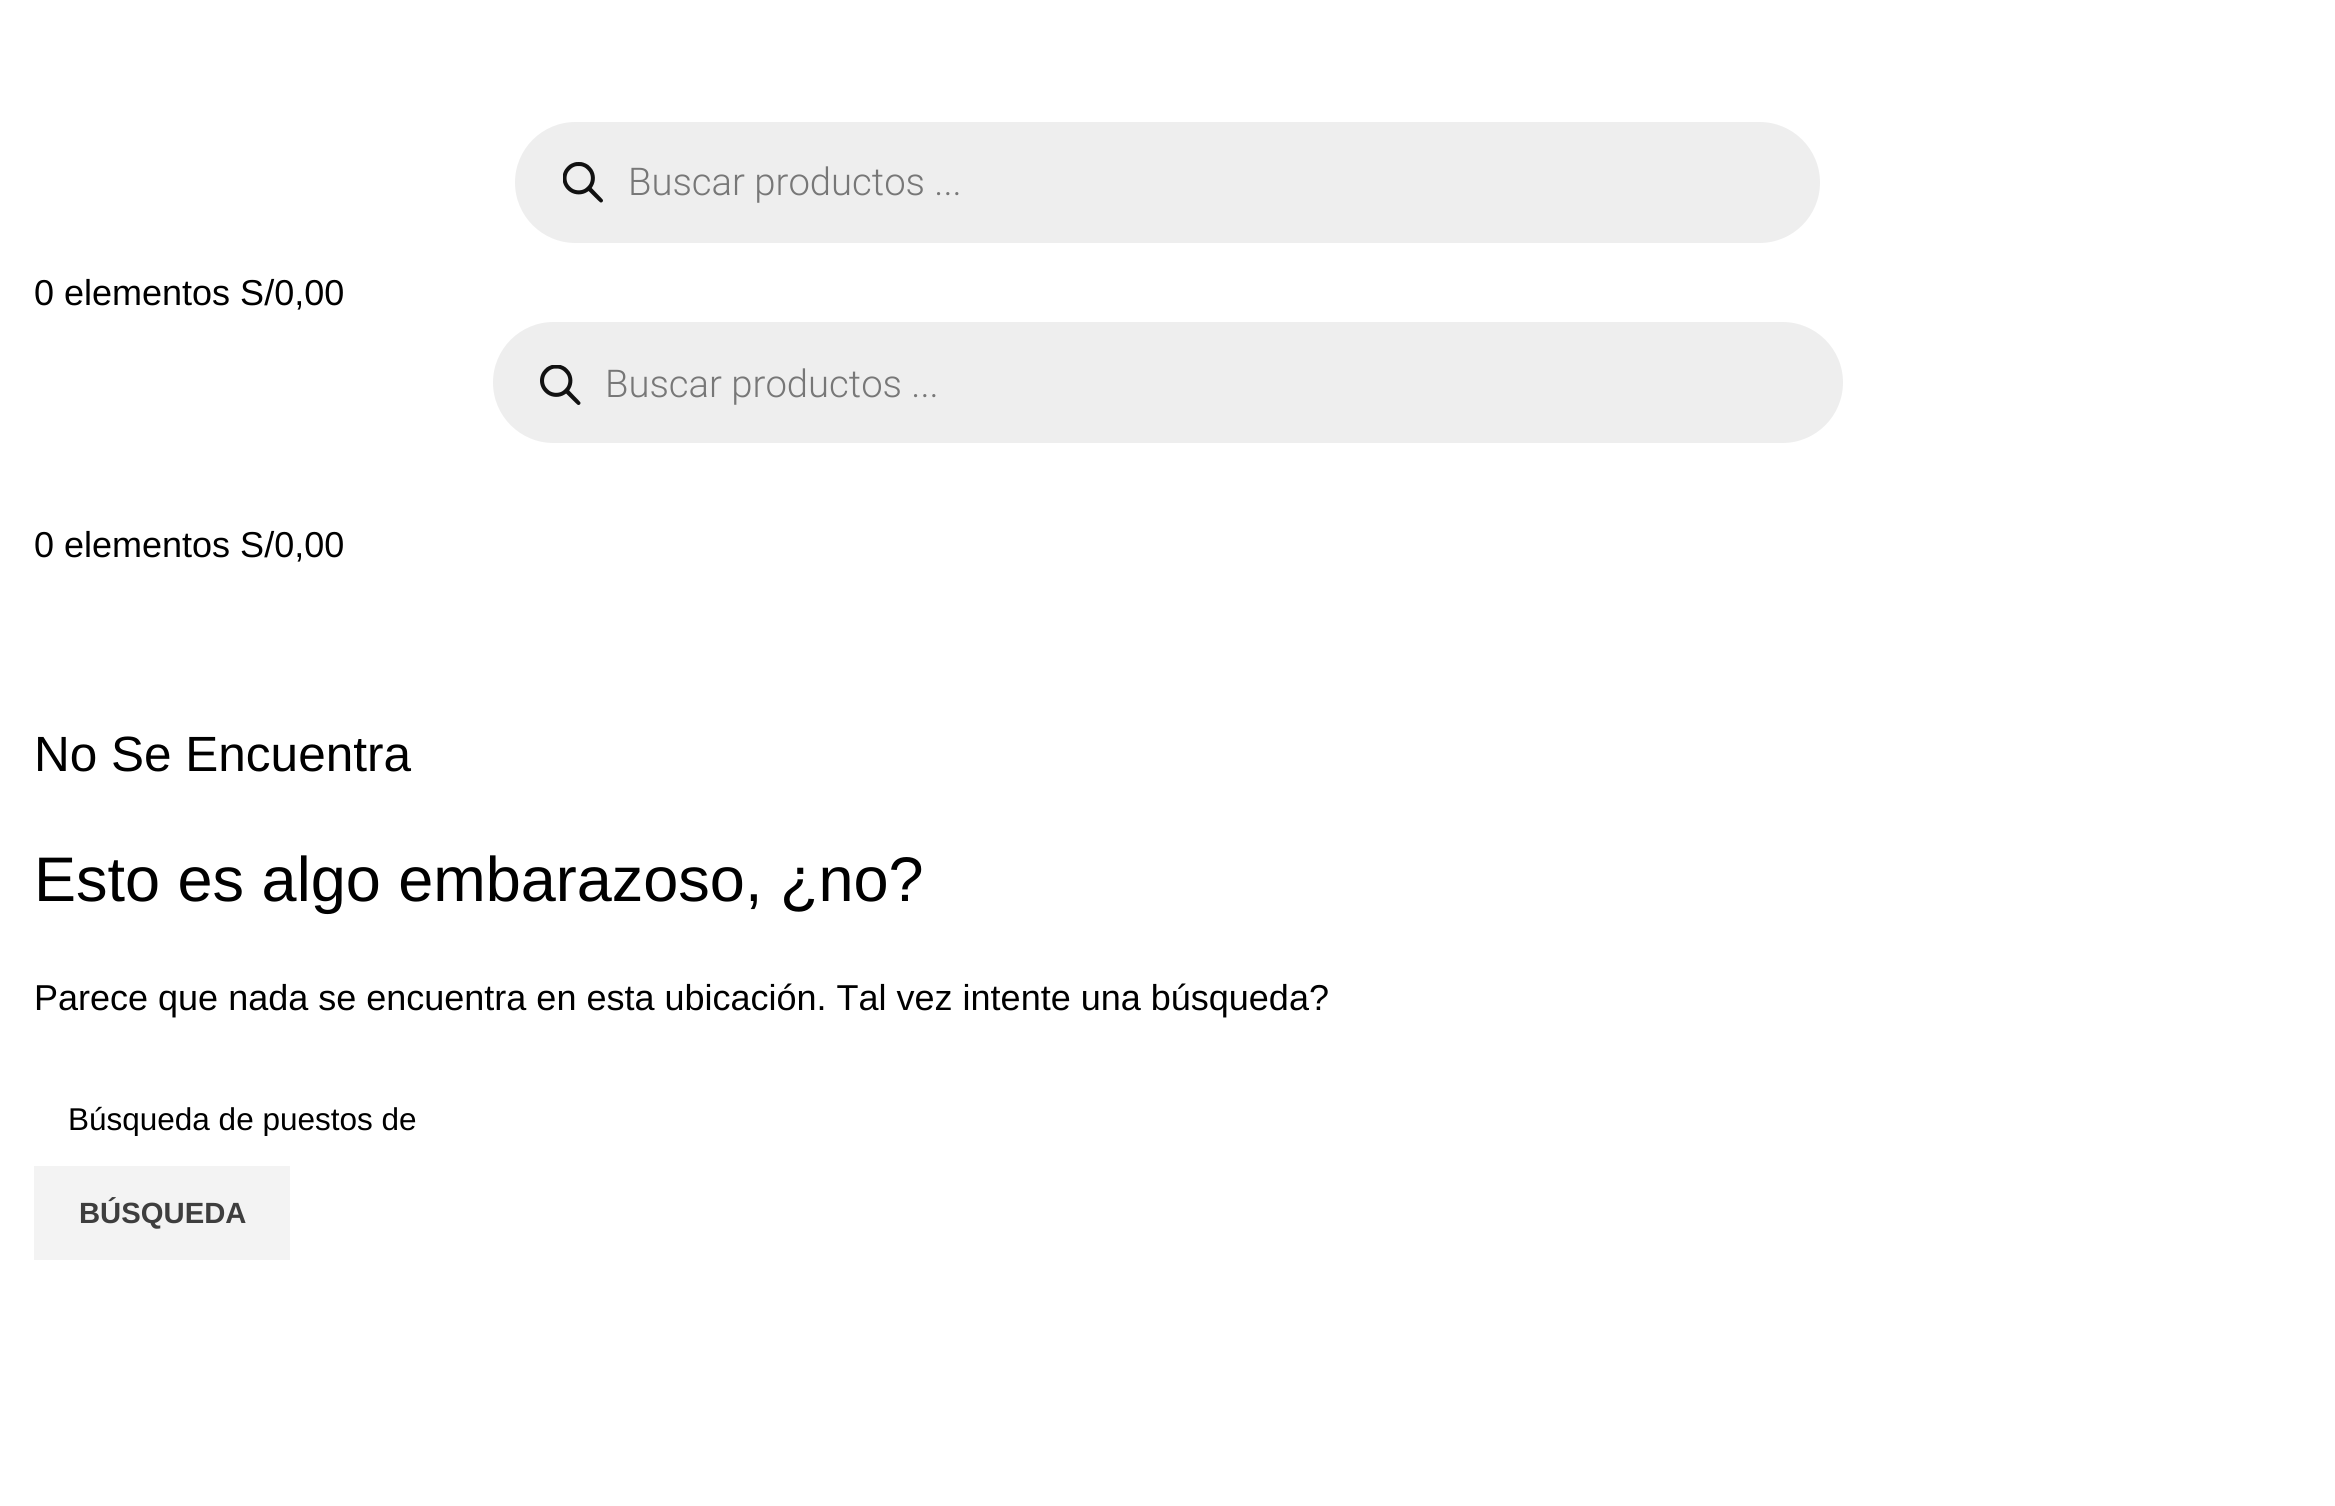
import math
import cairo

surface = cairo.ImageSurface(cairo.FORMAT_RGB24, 2335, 1506)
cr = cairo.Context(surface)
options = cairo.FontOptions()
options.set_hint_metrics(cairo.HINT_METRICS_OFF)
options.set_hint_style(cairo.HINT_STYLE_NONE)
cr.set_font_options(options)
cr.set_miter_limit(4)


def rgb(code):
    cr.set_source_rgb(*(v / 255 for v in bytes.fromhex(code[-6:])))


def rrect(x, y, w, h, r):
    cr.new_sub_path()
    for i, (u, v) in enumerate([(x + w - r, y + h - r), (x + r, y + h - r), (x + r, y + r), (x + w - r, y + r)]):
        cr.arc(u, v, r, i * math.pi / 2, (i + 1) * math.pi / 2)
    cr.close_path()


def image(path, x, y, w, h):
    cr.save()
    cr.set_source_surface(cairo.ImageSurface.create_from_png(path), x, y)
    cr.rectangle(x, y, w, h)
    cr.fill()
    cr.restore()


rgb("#ffffff")
cr.paint()
rgb("#eeeeee")
rrect(515, 122, 1305, 121, 60.5)
cr.fill()
image("img/1.png", 563, 162, 40, 41)
rrect(493, 322, 1350, 121, 60.5)
cr.fill()
image("img/2.png", 540, 365, 41, 40)
rgb("#f3f3f3")
cr.rectangle(34, 1166, 256, 94)
cr.fill()
cr.select_font_face("Roboto Light")
cr.set_font_size(38.25)
rgb("#777777")
cr.move_to(628, 195)
cr.show_text("Buscar productos ...")
cr.select_font_face("Liberation Sans")
cr.set_font_size(36)
rgb("#000000")
cr.move_to(34, 305)
cr.show_text("0 elementos S/0,00")
cr.select_font_face("Roboto Light")
cr.set_font_size(38.25)
rgb("#777777")
cr.move_to(605, 397)
cr.show_text("Buscar productos ...")
cr.select_font_face("Liberation Sans")
cr.set_font_size(36)
rgb("#000000")
cr.move_to(34, 557)
cr.show_text("0 elementos S/0,00")
cr.set_font_size(49.5)
cr.move_to(34, 771)
cr.show_text("No Se Encuentra")
cr.set_font_size(63)
cr.move_to(34, 901)
cr.show_text("Esto es algo embarazoso, ¿no?")
cr.set_font_size(36)
cr.move_to(34, 1010)
cr.show_text("Parece que nada se encuentra en esta ubicación. Tal vez intente una búsqueda?")
cr.save()
cr.rectangle(68, 1100, 2200, 36)
cr.clip()
cr.set_font_size(31.5)
cr.move_to(68, 1130)
cr.show_text("Búsqueda de puestos de")
cr.restore()
cr.select_font_face("Liberation Sans", cairo.FONT_SLANT_NORMAL, cairo.FONT_WEIGHT_BOLD)
cr.set_font_size(29.25)
rgb("#3e3e3e")
cr.move_to(79, 1223)
cr.show_text("BÚSQUEDA")
surface.write_to_png("page.png")
